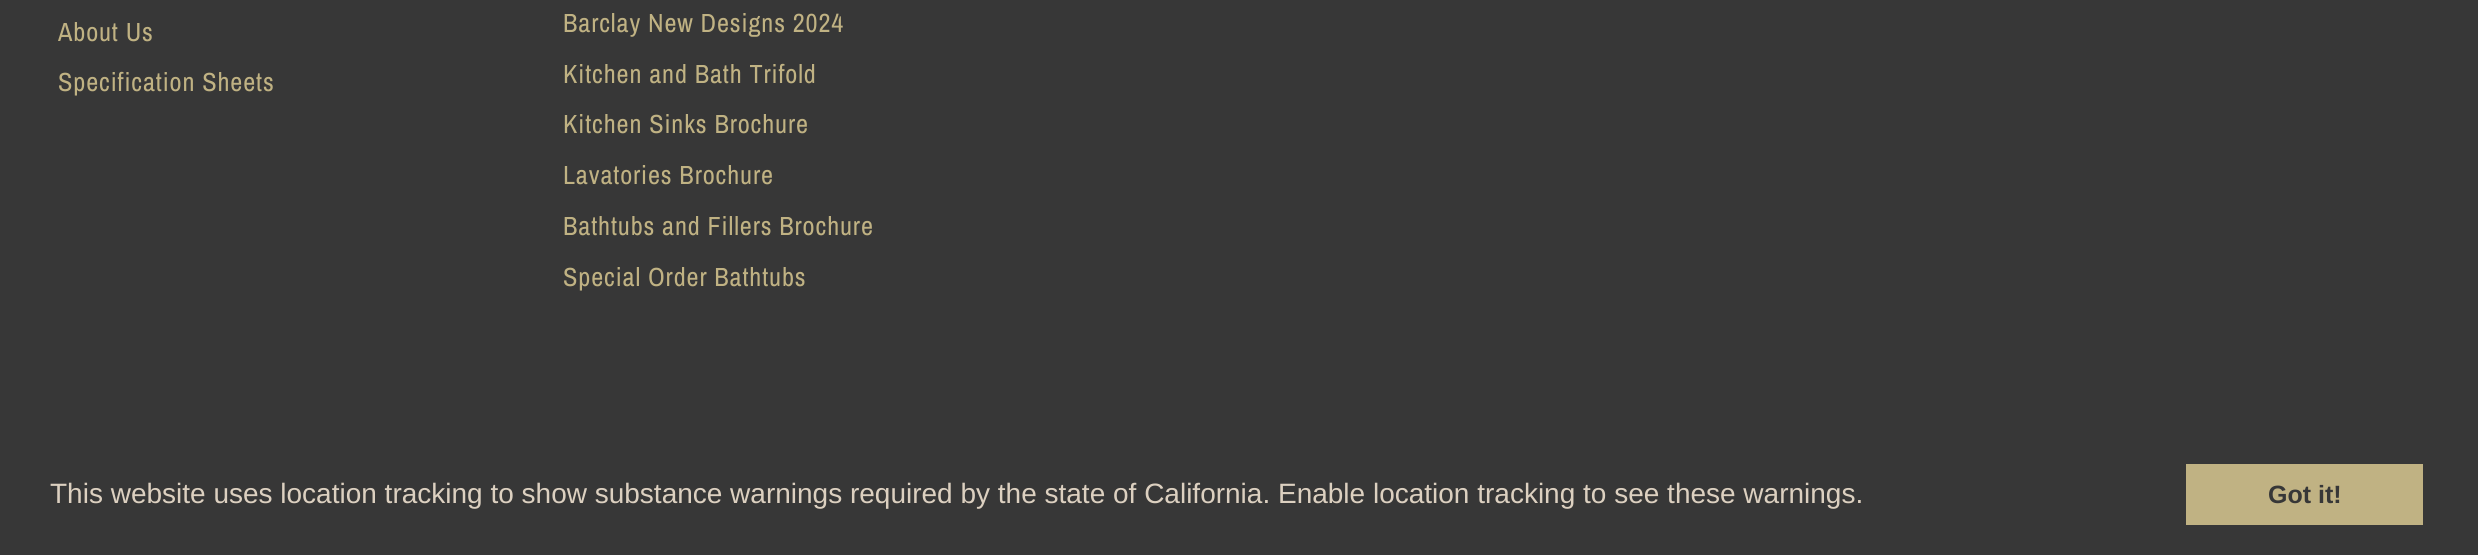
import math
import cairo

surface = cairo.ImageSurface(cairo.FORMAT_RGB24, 2478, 555)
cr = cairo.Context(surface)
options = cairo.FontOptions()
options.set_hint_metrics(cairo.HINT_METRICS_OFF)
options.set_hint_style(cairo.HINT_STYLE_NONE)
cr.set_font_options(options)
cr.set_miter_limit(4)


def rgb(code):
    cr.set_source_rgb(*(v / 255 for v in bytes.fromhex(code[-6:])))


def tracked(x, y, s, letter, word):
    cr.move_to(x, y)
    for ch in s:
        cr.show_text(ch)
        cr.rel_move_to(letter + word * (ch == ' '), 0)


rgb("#373737")
cr.paint()
rgb("#c0b283")
cr.rectangle(2186, 464, 237, 61)
cr.fill()
cr.select_font_face("Archivo Narrow")
cr.set_font_size(26.25)
for x, y, s in [
    (58, 41, "About Us"),
    (58, 91, "Specification Sheets"),
    (563, 32, "Barclay New Designs 2024"),
    (563, 83, "Kitchen and Bath Trifold"),
    (563, 133, "Kitchen Sinks Brochure"),
    (563, 184, "Lavatories Brochure"),
    (563, 235, "Bathtubs and Fillers Brochure"),
]:
    tracked(x, y, s, 0.9, 0)
cr.save()
cr.rectangle(564, 0, 434, 298)
cr.clip()
tracked(563, 286, "Special Order Bathtubs", 0.9, 0)
cr.restore()
cr.select_font_face("Liberation Sans")
cr.set_font_size(28)
rgb("#dcd0c0")
cr.move_to(50, 503)
cr.show_text("This website uses location tracking to show substance warnings required by the state of California. Enable location tracking to see these warnings.")
cr.select_font_face("Liberation Sans", cairo.FONT_SLANT_NORMAL, cairo.FONT_WEIGHT_BOLD)
cr.set_font_size(25)
rgb("#373737")
cr.move_to(2268, 503)
cr.show_text("Got it!")
surface.write_to_png("page.png")
